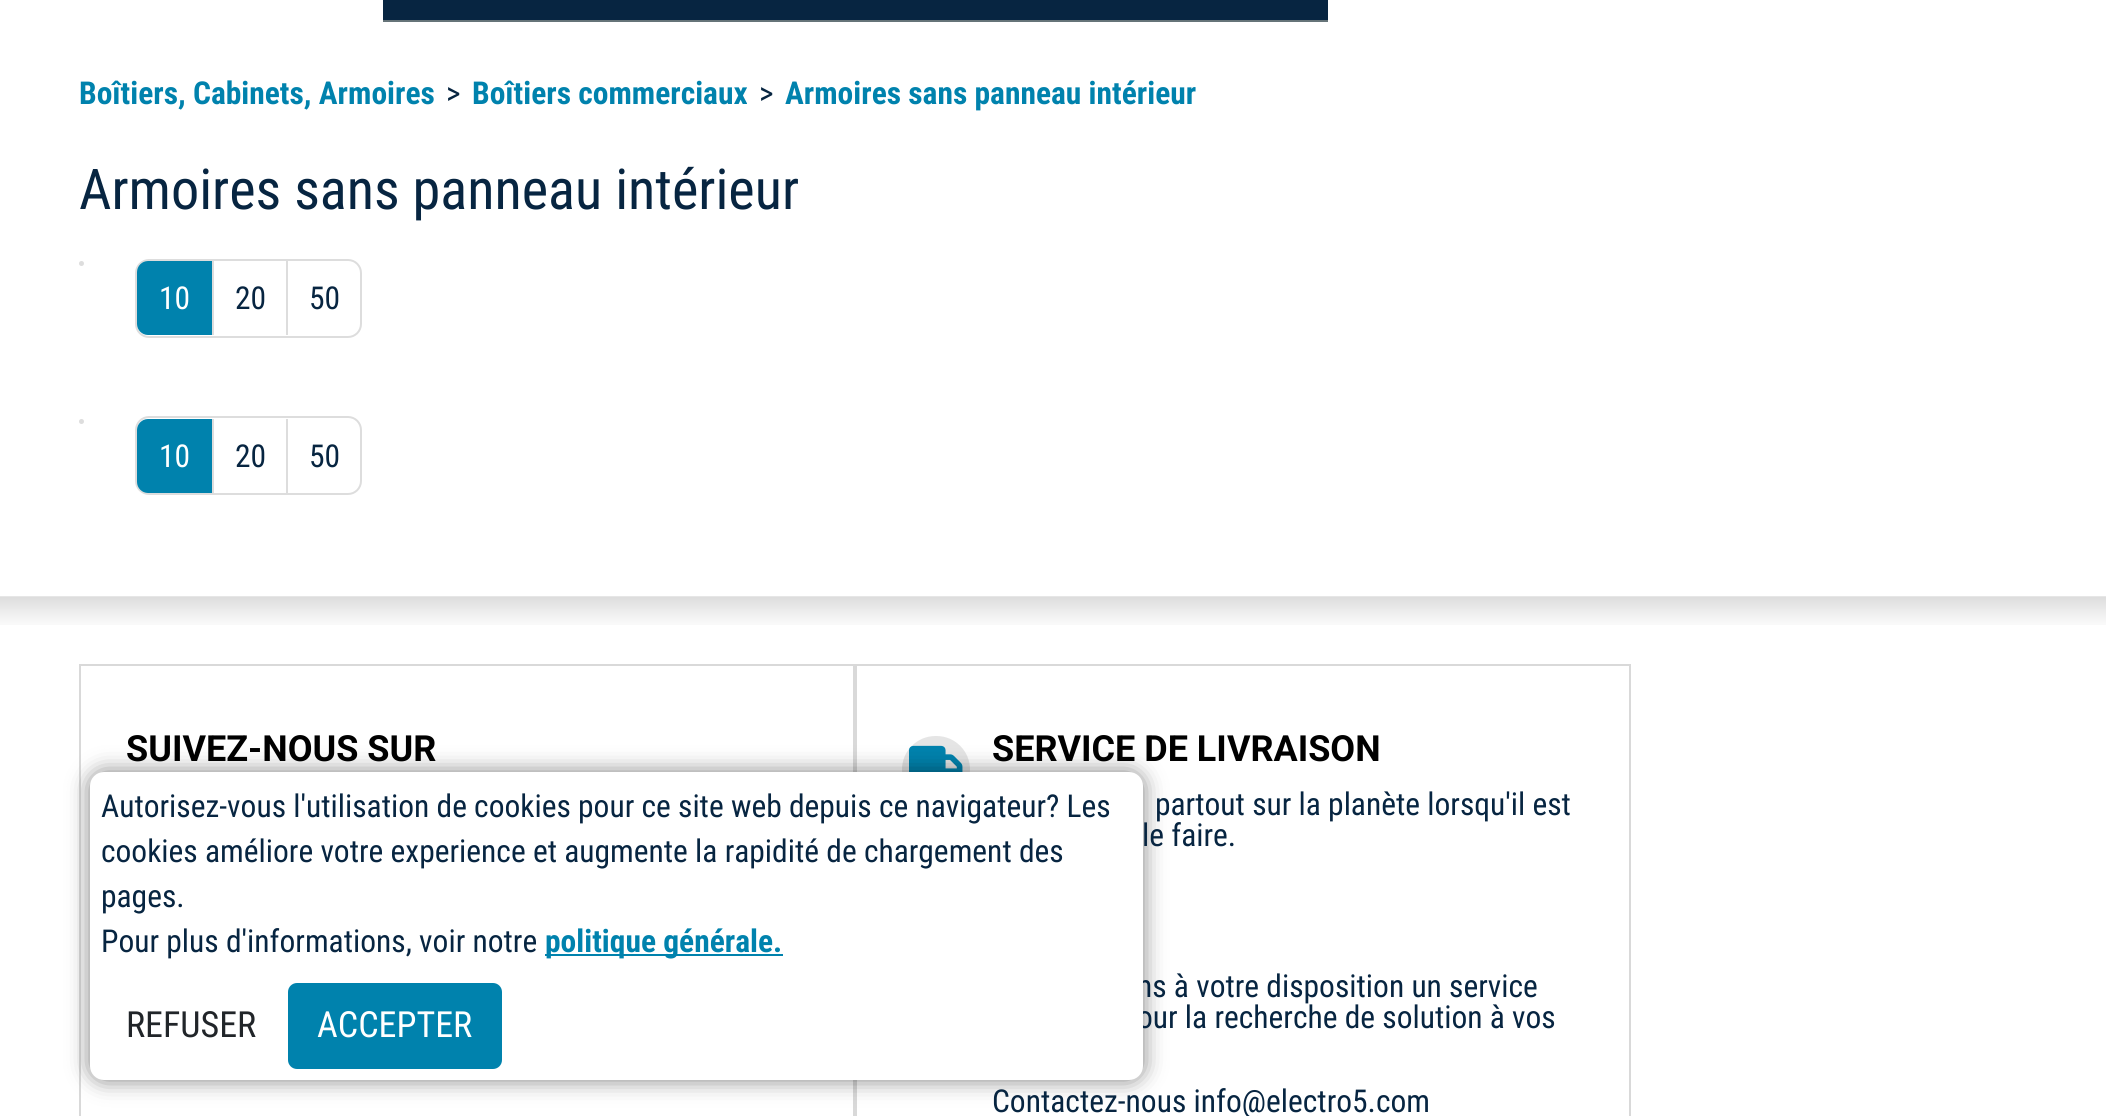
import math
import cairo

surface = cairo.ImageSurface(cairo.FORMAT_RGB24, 2106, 1116)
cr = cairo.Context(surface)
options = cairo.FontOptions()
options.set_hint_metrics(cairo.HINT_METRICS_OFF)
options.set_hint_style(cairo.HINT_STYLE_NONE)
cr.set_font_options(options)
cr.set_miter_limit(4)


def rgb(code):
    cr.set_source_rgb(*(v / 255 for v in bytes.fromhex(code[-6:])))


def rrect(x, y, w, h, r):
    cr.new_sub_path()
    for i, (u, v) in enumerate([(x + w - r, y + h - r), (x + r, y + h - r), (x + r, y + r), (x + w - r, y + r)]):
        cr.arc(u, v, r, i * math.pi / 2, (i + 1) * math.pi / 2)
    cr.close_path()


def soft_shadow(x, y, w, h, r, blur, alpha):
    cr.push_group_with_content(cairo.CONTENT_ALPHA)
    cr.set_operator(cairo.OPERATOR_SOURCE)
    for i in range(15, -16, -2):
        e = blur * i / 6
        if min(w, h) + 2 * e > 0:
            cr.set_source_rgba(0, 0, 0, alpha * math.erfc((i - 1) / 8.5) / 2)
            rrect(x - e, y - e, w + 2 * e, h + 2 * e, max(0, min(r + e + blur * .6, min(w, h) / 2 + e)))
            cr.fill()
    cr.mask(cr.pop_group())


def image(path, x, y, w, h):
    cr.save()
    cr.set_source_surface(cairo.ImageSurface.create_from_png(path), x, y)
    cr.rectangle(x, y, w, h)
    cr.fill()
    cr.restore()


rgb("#ffffff")
cr.paint()
rgb("#667479")
cr.rectangle(383, 20, 945, 2)
cr.fill()
rgb("#072541")
cr.rectangle(383, 0, 945, 20)
cr.fill()
rgb("#dddddd")
cr.arc(81.5, 263.5, 2.5, 0, 2 * math.pi)
cr.fill()
rrect(136, 260, 225, 77, 13)
cr.stroke()
rgb("#0082ad")
cr.new_path()
cr.move_to(148, 261)
cr.line_to(212, 261)
cr.line_to(212, 335)
cr.line_to(148, 335)
cr.curve_to(142, 335, 137, 330, 137, 324)
cr.line_to(137, 272)
cr.curve_to(137, 266, 142, 261, 148, 261)
cr.close_path()
cr.fill()
rgb("#dddddd")
cr.rectangle(212, 261, 2, 74)
cr.fill()
cr.rectangle(286, 261, 2, 74)
cr.fill()
cr.arc(81.5, 421.5, 2.5, 0, 2 * math.pi)
cr.fill()
rrect(136, 417, 225, 77, 13)
cr.stroke()
rgb("#0082ad")
cr.new_path()
cr.move_to(148, 419)
cr.line_to(212, 419)
cr.line_to(212, 493)
cr.line_to(148, 493)
cr.curve_to(142, 493, 137, 488, 137, 482)
cr.line_to(137, 430)
cr.curve_to(137, 424, 142, 419, 148, 419)
cr.close_path()
cr.fill()
rgb("#dddddd")
cr.rectangle(212, 419, 2, 74)
cr.fill()
cr.rectangle(286, 419, 2, 74)
cr.fill()
image("img/1.png", 0, 596, 2106, 29)
cr.rectangle(80, 665, 774, 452)
rgb("#d9d9d9")
cr.stroke()
cr.rectangle(856, 665, 774, 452)
cr.stroke()
rgb("#e5e5e5")
rrect(902, 736, 68, 67, 33.5)
cr.fill()
image("img/2.png", 909, 745, 54, 27)
rgb("#000000")
soft_shadow(90, 772, 1053, 308, 14, 11, 0.5)
cr.select_font_face("Roboto Condensed", cairo.FONT_SLANT_NORMAL, cairo.FONT_WEIGHT_BOLD)
cr.set_font_size(31.5)
rgb("#0082ad")
cr.move_to(79, 104)
cr.show_text("Boîtiers, Cabinets, Armoires")
cr.select_font_face("Roboto Condensed")
rgb("#072541")
cr.move_to(446, 104)
cr.show_text(">")
cr.select_font_face("Roboto Condensed", cairo.FONT_SLANT_NORMAL, cairo.FONT_WEIGHT_BOLD)
rgb("#0082ad")
cr.move_to(472, 104)
cr.show_text("Boîtiers commerciaux")
cr.select_font_face("Roboto Condensed")
rgb("#072541")
cr.move_to(759, 104)
cr.show_text(">")
cr.select_font_face("Roboto Condensed", cairo.FONT_SLANT_NORMAL, cairo.FONT_WEIGHT_BOLD)
rgb("#0082ad")
cr.move_to(785, 104)
cr.show_text("Armoires sans panneau intérieur")
cr.select_font_face("Roboto Condensed")
cr.set_font_size(56.25)
rgb("#072541")
cr.move_to(79, 209)
cr.show_text("Armoires sans panneau intérieur")
cr.set_font_size(31.5)
rgb("#ffffff")
cr.move_to(159, 309)
cr.show_text("10")
rgb("#072541")
cr.move_to(235, 309)
cr.show_text("20")
cr.move_to(309, 309)
cr.show_text("50")
rgb("#ffffff")
cr.move_to(159, 467)
cr.show_text("10")
rgb("#072541")
cr.move_to(235, 467)
cr.show_text("20")
cr.move_to(309, 467)
cr.show_text("50")
cr.select_font_face("Roboto", cairo.FONT_SLANT_NORMAL, cairo.FONT_WEIGHT_BOLD)
cr.set_font_size(36)
rgb("#000000")
cr.move_to(126, 761)
cr.show_text("SUIVEZ-NOUS SUR")
cr.move_to(992, 761)
cr.show_text("SERVICE DE LIVRAISON")
cr.select_font_face("Roboto Condensed")
cr.set_font_size(31.5)
rgb("#072541")
for x, y, s in [
    (1155, 815, "partout sur la planète lorsqu'il est"),
    (1142, 846, "le faire."),
    (1137, 997, "ns à votre disposition un service"),
    (1137, 1028, "our la recherche de solution à vos"),
    (992, 1112, "Contactez-nous info@electro5.com"),
]:
    cr.move_to(x, y)
    cr.show_text(s)
rgb("#ffffff")
rrect(90, 772, 1053, 308, 14)
cr.fill()
rgb("#072541")
for x, y, s in [
    (101, 817, "Autorisez-vous l'utilisation de cookies pour ce site web depuis ce navigateur? Les"),
    (101, 862, "cookies améliore votre experience et augmente la rapidité de chargement des"),
    (101, 907, "pages."),
    (101, 952, "Pour plus d'informations, voir notre"),
]:
    cr.move_to(x, y)
    cr.show_text(s)
rgb("#0082ad")
cr.rectangle(545, 954, 238, 2)
cr.fill()
cr.select_font_face("Roboto Condensed", cairo.FONT_SLANT_NORMAL, cairo.FONT_WEIGHT_BOLD)
cr.move_to(545, 952)
cr.show_text("politique générale.")
cr.select_font_face("Roboto Condensed")
cr.set_font_size(36)
rgb("#212529")
cr.move_to(126, 1037)
cr.show_text("REFUSER")
rgb("#0082ad")
rrect(288, 983, 214, 86, 9)
cr.fill()
rgb("#ffffff")
cr.move_to(317, 1037)
cr.show_text("ACCEPTER")
surface.write_to_png("page.png")
